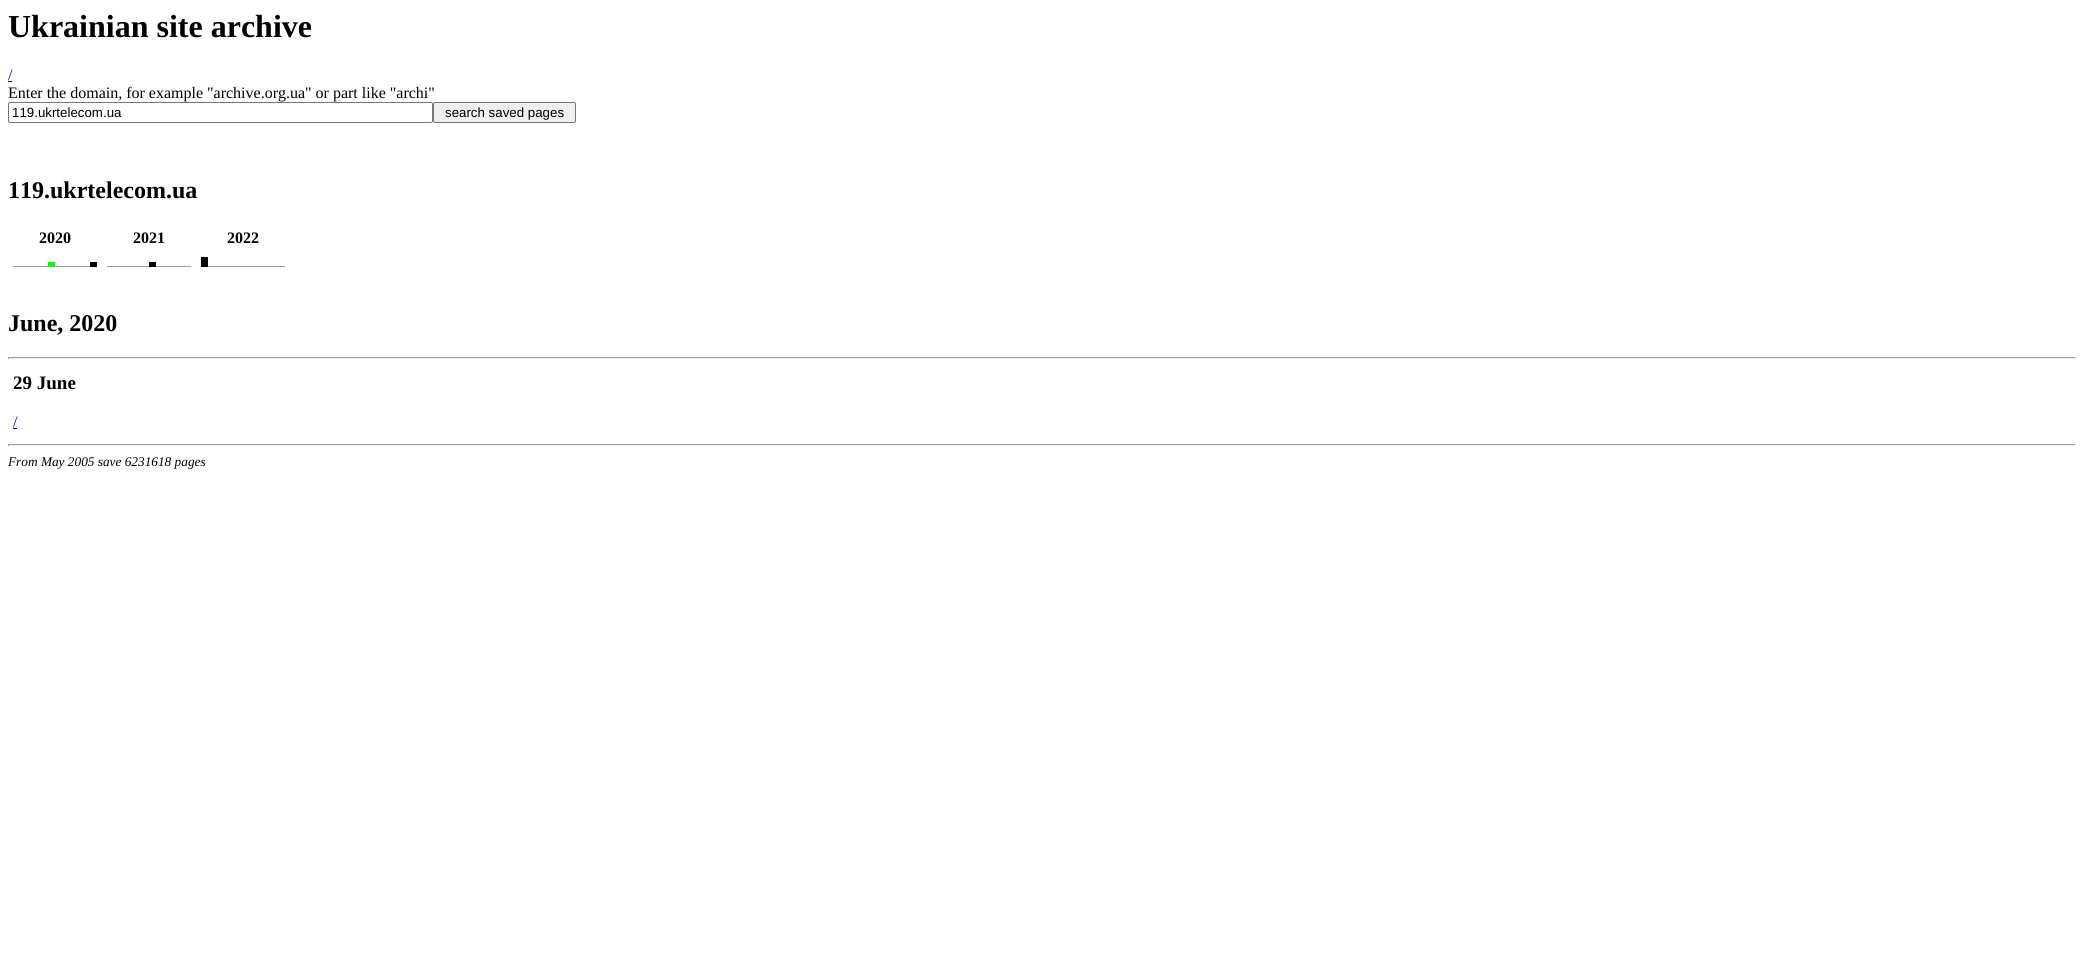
import math
import cairo

surface = cairo.ImageSurface(cairo.FORMAT_RGB24, 2084, 954)
cr = cairo.Context(surface)
options = cairo.FontOptions()
options.set_hint_metrics(cairo.HINT_METRICS_OFF)
options.set_hint_style(cairo.HINT_STYLE_NONE)
cr.set_font_options(options)
cr.set_miter_limit(4)


def rgb(code):
    cr.set_source_rgb(*(v / 255 for v in bytes.fromhex(code[-6:])))


def rrect(x, y, w, h, r):
    cr.new_sub_path()
    for i, (u, v) in enumerate([(x + w - r, y + h - r), (x + r, y + h - r), (x + r, y + r), (x + w - r, y + r)]):
        cr.arc(u, v, r, i * math.pi / 2, (i + 1) * math.pi / 2)
    cr.close_path()


rgb("#ffffff")
cr.paint()
rgb("#0000ee")
cr.rectangle(8, 81, 4, 1)
cr.fill()
rrect(8.5, 102.5, 424, 20, 1.5)
rgb("#767676")
cr.set_line_width(1)
cr.stroke()
rgb("#efefef")
rrect(433.5, 102.5, 142, 20, 1.5)
cr.fill_preserve()
rgb("#767676")
cr.stroke()
for x, y, w, h, color in [
    (13, 266, 35, 1, "#a0a0a0"),
    (48, 262, 7, 5, "#00ff00"),
    (55, 266, 35, 1, "#a0a0a0"),
    (90, 262, 7, 5, "#000000"),
    (107, 266, 42, 1, "#a0a0a0"),
    (149, 262, 7, 5, "#000000"),
    (156, 266, 35, 1, "#a0a0a0"),
    (201, 257, 7, 10, "#000000"),
    (208, 266, 77, 1, "#a0a0a0"),
    (8, 357, 2068, 1, "#9f9f9f"),
    (2075, 357, 1, 2, "#eeeeee"),
    (8, 358, 2068, 1, "#eeeeee"),
    (8, 357, 1, 2, "#9f9f9f"),
    (13, 428, 4, 1, "#0000ee"),
    (8, 444, 2068, 1, "#9f9f9f"),
    (2075, 444, 1, 2, "#eeeeee"),
    (8, 445, 2068, 1, "#eeeeee"),
    (8, 444, 1, 2, "#9f9f9f"),
]:
    rgb(color)
    cr.rectangle(x, y, w, h)
    cr.fill()
cr.select_font_face("Liberation Serif", cairo.FONT_SLANT_NORMAL, cairo.FONT_WEIGHT_BOLD)
cr.set_font_size(32)
rgb("#000000")
cr.move_to(8, 37)
cr.show_text("Ukrainian site archive")
cr.select_font_face("Liberation Serif")
cr.set_font_size(16)
rgb("#0000ee")
cr.move_to(8, 80)
cr.show_text("/")
rgb("#000000")
cr.move_to(8, 98)
cr.show_text("Enter the domain, for example \"archive.org.ua\" or part like \"archi\"")
cr.select_font_face("Liberation Sans")
cr.set_font_size(13.3)
cr.move_to(12, 117)
cr.show_text("119.ukrtelecom.ua")
cr.move_to(445, 117)
cr.show_text("search saved pages")
cr.select_font_face("Liberation Serif", cairo.FONT_SLANT_NORMAL, cairo.FONT_WEIGHT_BOLD)
cr.set_font_size(24)
cr.move_to(8, 198)
cr.show_text("119.ukrtelecom.ua")
cr.set_font_size(16)
for x, y, s in [
    (39, 243, "2020"),
    (133, 243, "2021"),
    (227, 243, "2022"),
]:
    cr.move_to(x, y)
    cr.show_text(s)
cr.set_font_size(24)
cr.move_to(8, 331)
cr.show_text("June, 2020")
cr.set_font_size(19)
cr.move_to(13, 389)
cr.show_text("29 June")
cr.select_font_face("Liberation Serif")
cr.set_font_size(16)
rgb("#0000ee")
cr.move_to(13, 427)
cr.show_text("/")
cr.select_font_face("Liberation Serif", cairo.FONT_SLANT_ITALIC)
cr.set_font_size(13.3)
rgb("#000000")
cr.move_to(8, 466)
cr.show_text("From May 2005 save 6231618 pages")
surface.write_to_png("page.png")
